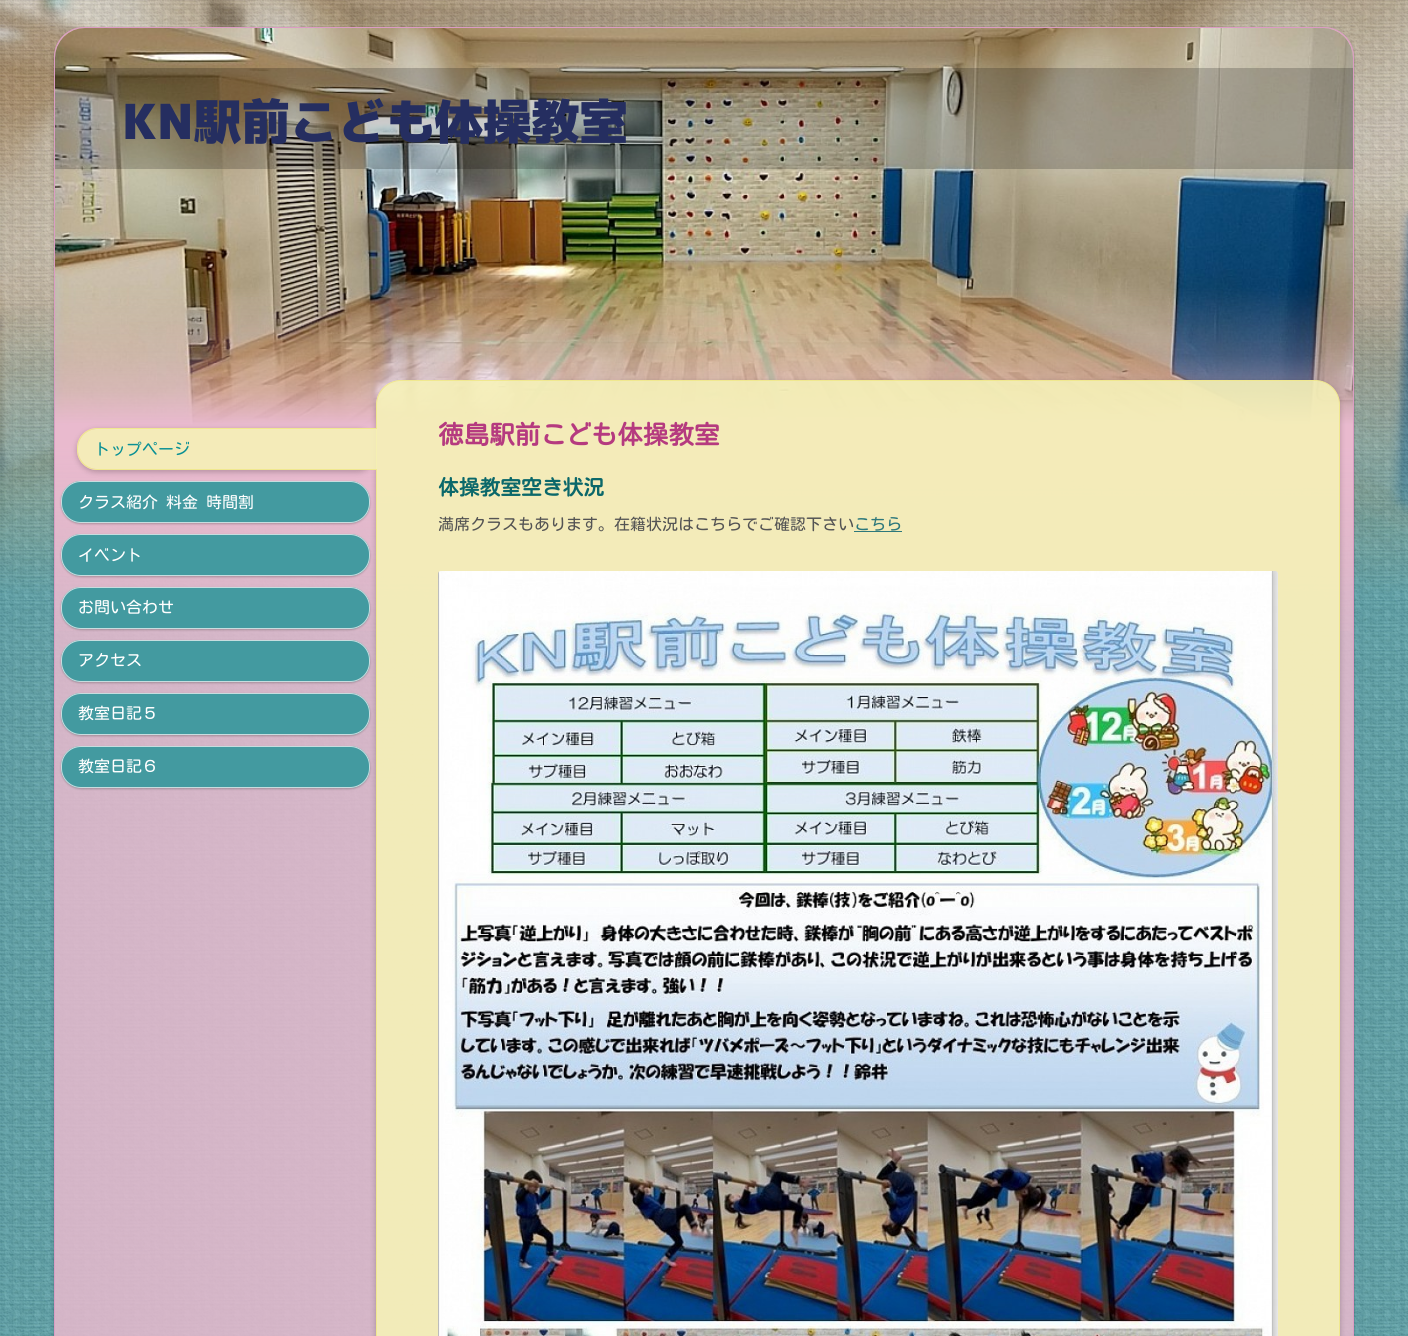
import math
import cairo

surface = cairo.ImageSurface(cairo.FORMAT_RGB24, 1408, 1336)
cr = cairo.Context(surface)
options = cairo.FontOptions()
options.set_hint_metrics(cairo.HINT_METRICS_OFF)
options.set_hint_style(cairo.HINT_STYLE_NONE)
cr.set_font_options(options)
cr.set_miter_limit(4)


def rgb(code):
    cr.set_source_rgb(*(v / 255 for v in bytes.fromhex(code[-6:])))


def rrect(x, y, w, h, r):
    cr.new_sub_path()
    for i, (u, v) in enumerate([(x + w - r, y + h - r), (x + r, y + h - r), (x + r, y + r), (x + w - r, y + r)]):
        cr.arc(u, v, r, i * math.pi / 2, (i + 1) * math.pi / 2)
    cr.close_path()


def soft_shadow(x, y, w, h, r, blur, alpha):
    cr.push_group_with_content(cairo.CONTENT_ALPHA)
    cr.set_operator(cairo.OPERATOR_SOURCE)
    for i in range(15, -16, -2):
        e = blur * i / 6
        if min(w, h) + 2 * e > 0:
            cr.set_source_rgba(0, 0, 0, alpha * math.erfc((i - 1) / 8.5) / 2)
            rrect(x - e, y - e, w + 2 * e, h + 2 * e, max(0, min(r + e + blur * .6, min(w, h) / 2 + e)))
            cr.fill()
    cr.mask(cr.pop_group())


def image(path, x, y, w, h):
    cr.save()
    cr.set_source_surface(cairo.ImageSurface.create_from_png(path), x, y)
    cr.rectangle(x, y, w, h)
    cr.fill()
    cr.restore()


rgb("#ffffff")
cr.paint()
image("img/1.png", 0, 0, 1408, 592)
gradient = cairo.LinearGradient(704, 300, 704, 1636)
gradient.add_color_stop_rgba(0, 0.243, 0.573, 0.592, 0)
gradient.add_color_stop_rgba(0.22, 0.243, 0.573, 0.592, 1)
cr.set_source(gradient)
cr.rectangle(0, 306, 1408, 1030)
cr.fill()
image("img/2.png", 0, 0, 1408, 1336)
cr.save()
cr.set_fill_rule(cairo.FILL_RULE_EVEN_ODD)
cr.new_path()
cr.move_to(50, 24)
cr.line_to(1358, 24)
cr.line_to(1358, 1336)
cr.line_to(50, 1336)
cr.close_path()
cr.move_to(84, 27)
cr.line_to(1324, 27)
cr.curve_to(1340.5, 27, 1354, 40.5, 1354, 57)
cr.line_to(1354, 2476)
cr.curve_to(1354, 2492.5, 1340.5, 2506, 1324, 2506)
cr.line_to(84, 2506)
cr.curve_to(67.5, 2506, 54, 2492.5, 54, 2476)
cr.line_to(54, 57)
cr.curve_to(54, 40.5, 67.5, 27, 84, 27)
cr.close_path()
cr.clip()
rgb("#000000")
soft_shadow(54, 28, 1300, 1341, 30, 1, 0.23)
cr.restore()
cr.set_source_rgba(0.914, 0.729, 0.808, 0.85)
rrect(54.5, 27.5, 1299, 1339, 29.5)
cr.fill_preserve()
rgb("#db9cc3")
cr.set_line_width(1)
cr.stroke()
image("img/3.png", 55, 28, 1298, 397)
gradient = cairo.LinearGradient(704, 655, 704, 425)
gradient.add_color_stop_rgba(0, 0.914, 0.729, 0.808, 0)
gradient.add_color_stop_rgba(0.9, 0.914, 0.729, 0.808, 1)
cr.set_source(gradient)
cr.rectangle(55, 425, 1298, 206)
cr.fill()
cr.set_source_rgba(0, 0, 0, 0.2)
cr.rectangle(55, 68, 1298, 101)
cr.fill()
rgb("#000000")
soft_shadow(61, 482, 309, 42, 20, 1, 0.23)
cr.save()
cr.set_fill_rule(cairo.FILL_RULE_EVEN_ODD)
cr.new_path()
cr.move_to(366, 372)
cr.line_to(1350, 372)
cr.line_to(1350, 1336)
cr.line_to(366, 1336)
cr.close_path()
cr.move_to(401, 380)
cr.line_to(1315, 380)
cr.curve_to(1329, 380, 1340, 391, 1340, 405)
cr.line_to(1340, 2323)
cr.curve_to(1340, 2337, 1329, 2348, 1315, 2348)
cr.line_to(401, 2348)
cr.curve_to(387, 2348, 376, 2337, 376, 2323)
cr.line_to(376, 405)
cr.curve_to(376, 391, 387, 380, 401, 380)
cr.close_path()
cr.clip()
soft_shadow(376, 382, 964, 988, 25, 3, 0.23)
cr.restore()
rgb("#439aa0")
rrect(61, 481, 309, 42, 20)
cr.fill()
rrect(61.5, 481.5, 308, 41, 19.5)
cr.set_source_rgba(1, 0.98, 0.98, 0.7)
cr.stroke()
cr.set_source_rgba(0.961, 0.945, 0.718, 0.9)
rrect(376.5, 380.5, 963, 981, 24.5)
cr.fill_preserve()
rgb("#f0e88f")
cr.stroke()
cr.save()
cr.rectangle(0, 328, 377, 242)
cr.clip()
cr.set_fill_rule(cairo.FILL_RULE_EVEN_ODD)
cr.new_path()
cr.move_to(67, 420)
cr.line_to(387, 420)
cr.line_to(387, 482)
cr.line_to(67, 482)
cr.close_path()
cr.move_to(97, 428)
cr.line_to(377, 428)
cr.line_to(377, 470)
cr.line_to(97, 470)
cr.curve_to(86, 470, 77, 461, 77, 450)
cr.line_to(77, 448)
cr.curve_to(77, 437, 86, 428, 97, 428)
cr.close_path()
cr.clip()
rgb("#000000")
soft_shadow(77, 430, 300, 42, 20, 3, 0.23)
cr.restore()
cr.set_source_rgba(0.961, 0.945, 0.718, 0.9)
cr.new_path()
cr.move_to(97, 429)
cr.line_to(377, 429)
cr.line_to(377, 469)
cr.line_to(97, 469)
cr.curve_to(86.5, 469, 78, 460.5, 78, 450)
cr.line_to(78, 448)
cr.curve_to(78, 437.5, 86.5, 429, 97, 429)
cr.close_path()
cr.fill()
rgb("#f0e88f")
cr.set_fill_rule(cairo.FILL_RULE_EVEN_ODD)
cr.new_path()
cr.move_to(97, 428)
cr.line_to(377, 428)
cr.line_to(377, 470)
cr.line_to(97, 470)
cr.curve_to(86, 470, 77, 461, 77, 450)
cr.line_to(77, 448)
cr.curve_to(77, 437, 86, 428, 97, 428)
cr.close_path()
cr.move_to(97, 429)
cr.line_to(377, 429)
cr.line_to(377, 469)
cr.line_to(97, 469)
cr.curve_to(87, 469, 78, 460, 78, 450)
cr.line_to(78, 448)
cr.curve_to(78, 438, 87, 429, 97, 429)
cr.close_path()
cr.fill()
rgb("#000000")
soft_shadow(61, 535, 309, 42, 20, 1, 0.23)
rgb("#439aa0")
rrect(61, 534, 309, 42, 20)
cr.fill()
rrect(61.5, 534.5, 308, 41, 19.5)
cr.set_source_rgba(1, 0.98, 0.98, 0.7)
cr.stroke()
rgb("#000000")
soft_shadow(61, 588, 309, 42, 20, 1, 0.23)
rgb("#439aa0")
rrect(61, 587, 309, 42, 20)
cr.fill()
rrect(61.5, 587.5, 308, 41, 19.5)
cr.set_source_rgba(1, 0.98, 0.98, 0.7)
cr.stroke()
rgb("#000000")
soft_shadow(61, 641, 309, 42, 20, 1, 0.23)
rgb("#439aa0")
rrect(61, 640, 309, 42, 20)
cr.fill()
rrect(61.5, 640.5, 308, 41, 19.5)
cr.set_source_rgba(1, 0.98, 0.98, 0.7)
cr.stroke()
rgb("#000000")
soft_shadow(61, 694, 309, 42, 20, 1, 0.23)
rgb("#439aa0")
rrect(61, 693, 309, 42, 20)
cr.fill()
rrect(61.5, 693.5, 308, 41, 19.5)
cr.set_source_rgba(1, 0.98, 0.98, 0.7)
cr.stroke()
rgb("#000000")
soft_shadow(61, 747, 309, 42, 20, 1, 0.23)
rgb("#439aa0")
rrect(61, 746, 309, 42, 20)
cr.fill()
rrect(61.5, 746.5, 308, 41, 19.5)
cr.set_source_rgba(1, 0.98, 0.98, 0.7)
cr.stroke()
rgb("#2d787b")
cr.rectangle(854, 531, 48, 1)
cr.fill()
image("img/4.png", 438, 571, 840, 765)
cr.select_font_face("M PLUS 1p Black")
cr.set_font_size(48.25)
rgb("#252e60")
cr.move_to(122, 139)
cr.show_text("KN駅前こども体操教室")
cr.select_font_face("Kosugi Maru")
cr.set_font_size(16)
rgb("#0a9094")
cr.move_to(94, 455)
cr.show_text("トップページ")
rgb("#ffffff")
for x, y, s in [
    (78, 508, "クラス紹介 料金 時間割"),
    (78, 561, "イベント"),
    (78, 613, "お問い合わせ"),
    (78, 666, "アクセス"),
    (78, 719, "教室日記５"),
    (78, 772, "教室日記６"),
]:
    cr.move_to(x, y)
    cr.show_text(s)
cr.select_font_face("Kosugi Maru", cairo.FONT_SLANT_NORMAL, cairo.FONT_WEIGHT_BOLD)
cr.set_font_size(25.6)
rgb("#b53a7f")
cr.move_to(438, 444)
cr.show_text("徳島駅前こども体操教室")
cr.set_font_size(20.75)
rgb("#0b686a")
cr.move_to(438, 495)
cr.show_text("体操教室空き状況")
cr.select_font_face("Kosugi Maru")
cr.set_font_size(16)
rgb("#545454")
cr.move_to(438, 530)
cr.show_text("満席クラスもあります。在籍状況はこちらでご確認下さい")
rgb("#2d787b")
cr.move_to(854, 530)
cr.show_text("こちら")
surface.write_to_png("page.png")
